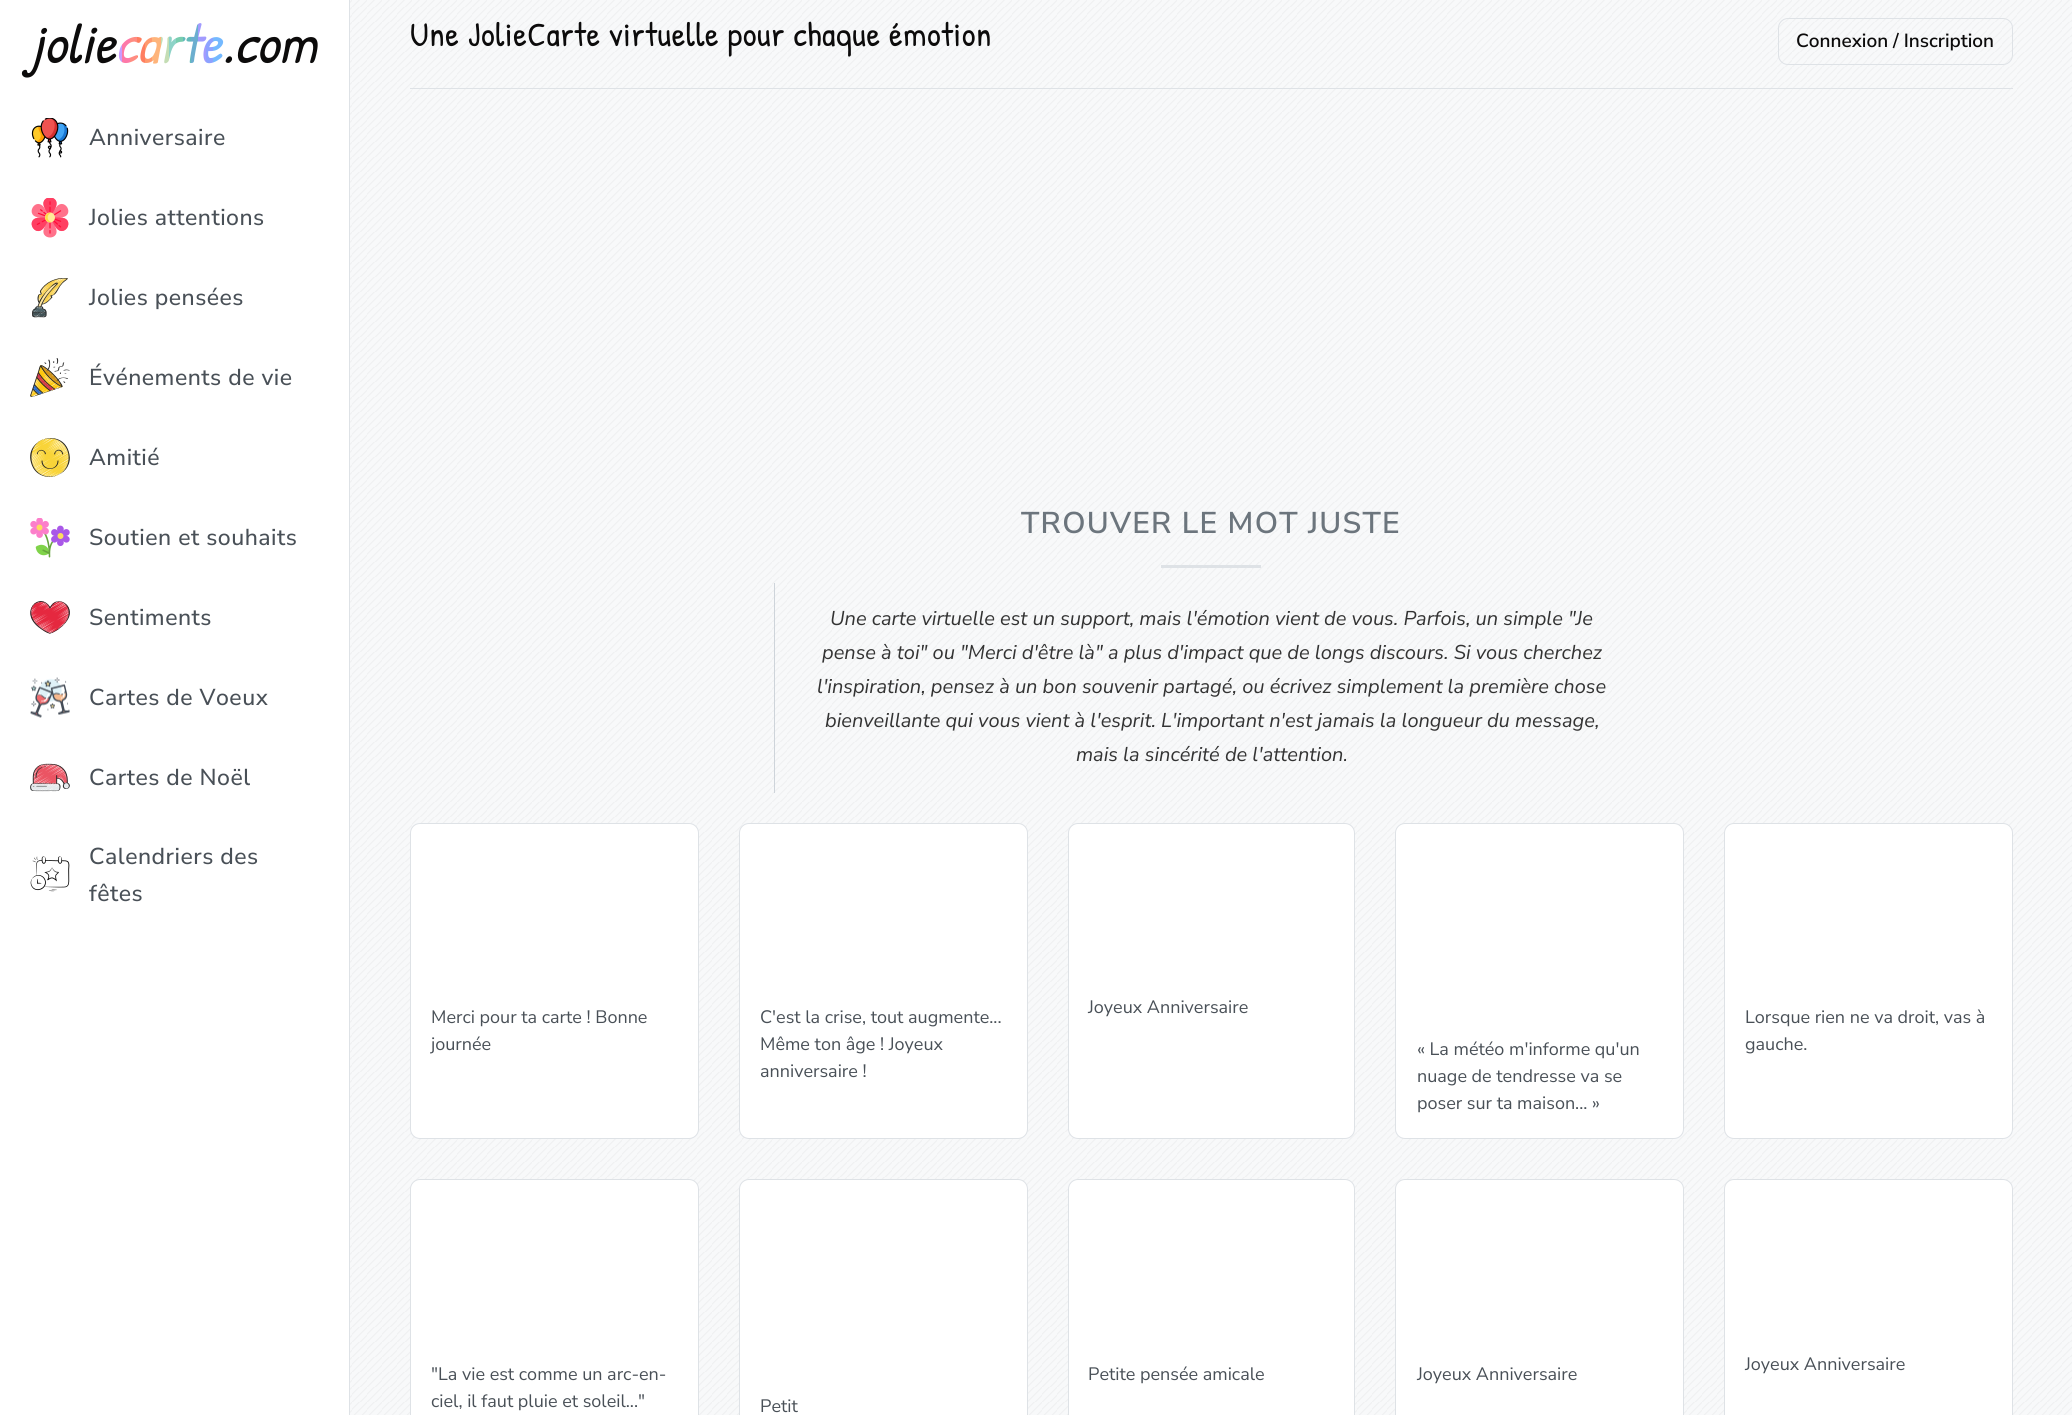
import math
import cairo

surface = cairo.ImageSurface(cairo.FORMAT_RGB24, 2072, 1415)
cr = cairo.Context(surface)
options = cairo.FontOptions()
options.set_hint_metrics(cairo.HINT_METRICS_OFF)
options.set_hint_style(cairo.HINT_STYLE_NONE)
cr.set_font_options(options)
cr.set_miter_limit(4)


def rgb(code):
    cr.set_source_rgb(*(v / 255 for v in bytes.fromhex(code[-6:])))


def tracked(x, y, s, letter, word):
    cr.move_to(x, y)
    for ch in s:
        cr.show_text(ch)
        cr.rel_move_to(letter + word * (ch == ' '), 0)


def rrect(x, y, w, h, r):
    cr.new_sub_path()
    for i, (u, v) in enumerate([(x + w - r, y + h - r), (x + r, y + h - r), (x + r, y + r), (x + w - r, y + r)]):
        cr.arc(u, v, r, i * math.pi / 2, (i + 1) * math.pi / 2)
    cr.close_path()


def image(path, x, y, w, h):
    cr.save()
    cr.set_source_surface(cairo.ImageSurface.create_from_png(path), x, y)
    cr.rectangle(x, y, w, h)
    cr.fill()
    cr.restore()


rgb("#f8f9fa")
cr.paint()
image("img/1.png", 350, 0, 1722, 1415)
rgb("#ffffff")
cr.rectangle(0, 0, 349, 1415)
cr.fill()
rgb("#dee2e6")
cr.rectangle(349, 0, 1, 1415)
cr.fill()
image("img/2.png", 31, 118, 38, 40)
image("img/3.png", 31, 198, 38, 40)
image("img/4.png", 32, 278, 36, 40)
image("img/5.png", 30, 358, 40, 39)
image("img/6.png", 30, 438, 40, 40)
image("img/7.png", 30, 518, 40, 40)
image("img/8.png", 30, 601, 40, 33)
image("img/9.png", 30, 677, 40, 41)
image("img/10.png", 30, 763, 40, 29)
image("img/11.png", 30, 856, 40, 36)
cr.rectangle(410, 88, 1603, 1)
cr.fill()
rrect(1778.5, 18.5, 234, 46, 9.5)
cr.set_line_width(1)
cr.stroke()
cr.rectangle(1161, 565, 100, 3)
cr.fill()
rgb("#ced4da")
cr.rectangle(774, 583, 1, 210)
cr.fill()
rgb("#ffffff")
rrect(410.5, 823.5, 288, 315, 9.5)
cr.fill_preserve()
rgb("#dee2e6")
cr.stroke()
rgb("#ffffff")
rrect(739.5, 823.5, 288, 315, 9.5)
cr.fill_preserve()
rgb("#dee2e6")
cr.stroke()
rgb("#ffffff")
rrect(1068.5, 823.5, 286, 315, 9.5)
cr.fill_preserve()
rgb("#dee2e6")
cr.stroke()
rgb("#ffffff")
rrect(1395.5, 823.5, 288, 315, 9.5)
cr.fill_preserve()
rgb("#dee2e6")
cr.stroke()
rgb("#ffffff")
rrect(1724.5, 823.5, 288, 315, 9.5)
cr.fill_preserve()
rgb("#dee2e6")
cr.stroke()
rgb("#ffffff")
rrect(410.5, 1179.5, 288, 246, 9.5)
cr.fill_preserve()
rgb("#dee2e6")
cr.stroke()
rgb("#ffffff")
rrect(1068.5, 1179.5, 286, 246, 9.5)
cr.fill_preserve()
rgb("#dee2e6")
cr.stroke()
rgb("#ffffff")
rrect(1395.5, 1179.5, 288, 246, 9.5)
cr.fill_preserve()
rgb("#dee2e6")
cr.stroke()
rgb("#ffffff")
rrect(1724.5, 1179.5, 288, 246, 9.5)
cr.fill_preserve()
rgb("#dee2e6")
cr.stroke()
rgb("#ffffff")
rrect(739.5, 1179.5, 288, 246, 9.5)
cr.fill_preserve()
rgb("#dee2e6")
cr.stroke()
cr.select_font_face("Patrick Hand", cairo.FONT_SLANT_ITALIC)
cr.set_font_size(56)
rgb("#0c0b0b")
cr.move_to(30, 63)
cr.show_text("jolie")
gradient = cairo.LinearGradient(115, 43, 222, 43)
gradient.add_color_stop_rgba(0, 0.78, 0.612, 0.996, 1)
gradient.add_color_stop_rgba(0.07, 0.78, 0.612, 0.996, 1)
gradient.add_color_stop_rgba(0.07, 0.992, 0.475, 0.659, 1)
gradient.add_color_stop_rgba(0.14, 0.992, 0.475, 0.659, 1)
gradient.add_color_stop_rgba(0.14, 1, 0.549, 0.51, 1)
gradient.add_color_stop_rgba(0.21, 1, 0.549, 0.51, 1)
gradient.add_color_stop_rgba(0.21, 1, 0.494, 0.373, 1)
gradient.add_color_stop_rgba(0.28, 1, 0.494, 0.373, 1)
gradient.add_color_stop_rgba(0.28, 1, 0.6, 0.427, 1)
gradient.add_color_stop_rgba(0.35, 1, 0.6, 0.427, 1)
gradient.add_color_stop_rgba(0.35, 0.996, 0.706, 0.482, 1)
gradient.add_color_stop_rgba(0.43, 0.996, 0.706, 0.482, 1)
gradient.add_color_stop_rgba(0.43, 0.769, 0.867, 0.706, 1)
gradient.add_color_stop_rgba(0.5, 0.769, 0.867, 0.706, 1)
gradient.add_color_stop_rgba(0.5, 0.553, 0.827, 0.78, 1)
gradient.add_color_stop_rgba(0.57, 0.553, 0.827, 0.78, 1)
gradient.add_color_stop_rgba(0.57, 0.471, 0.804, 0.682, 1)
gradient.add_color_stop_rgba(0.64, 0.471, 0.804, 0.682, 1)
gradient.add_color_stop_rgba(0.64, 0.388, 0.729, 0.729, 1)
gradient.add_color_stop_rgba(0.71, 0.388, 0.729, 0.729, 1)
gradient.add_color_stop_rgba(0.71, 0.42, 0.682, 0.812, 1)
gradient.add_color_stop_rgba(0.78, 0.42, 0.682, 0.812, 1)
gradient.add_color_stop_rgba(0.78, 0.635, 0.608, 0.996, 1)
gradient.add_color_stop_rgba(0.85, 0.635, 0.608, 0.996, 1)
gradient.add_color_stop_rgba(0.85, 0.553, 0.635, 1, 1)
gradient.add_color_stop_rgba(0.92, 0.553, 0.635, 1, 1)
gradient.add_color_stop_rgba(0.92, 0.455, 0.725, 1, 1)
gradient.add_color_stop_rgba(1, 0.455, 0.725, 1, 1)
cr.set_source(gradient)
cr.move_to(115, 63)
cr.show_text("carte")
rgb("#0c0b0b")
cr.move_to(222, 63)
cr.show_text(".com")
cr.select_font_face("Nunito Sans Medium")
cr.set_font_size(23)
rgb("#495057")
for x, y, s in [
    (89, 145, "Anniversaire"),
    (89, 225, "Jolies attentions"),
    (89, 305, "Jolies pensées"),
    (89, 385, "Événements de vie"),
    (89, 465, "Amitié"),
    (89, 545, "Soutien et souhaits"),
    (89, 625, "Sentiments"),
    (89, 705, "Cartes de Voeux"),
    (89, 785, "Cartes de Noël"),
    (89, 864, "Calendriers des"),
    (89, 901, "fêtes"),
]:
    tracked(x, y, s, 0.5, 0)
cr.select_font_face("Patrick Hand")
cr.set_font_size(34)
rgb("#0c0b0b")
tracked(410, 46, "Une JolieCarte virtuelle pour chaque émotion", 0.6, 0)
cr.select_font_face("Nunito Sans SemiBold")
cr.set_font_size(19)
cr.move_to(1796, 47)
cr.show_text("Connexion / Inscription")
cr.set_font_size(30)
rgb("#6c757d")
tracked(1021, 533, "TROUVER LE MOT JUSTE", 1.25, 0)
cr.select_font_face("Nunito Sans ExtraLight", cairo.FONT_SLANT_ITALIC)
cr.set_font_size(20)
rgb("#333333")
for x, y, s in [
    (830, 625, "Une carte virtuelle est un support, mais l'émotion vient de vous. Parfois, un simple \"Je"),
    (822, 659, "pense à toi\" ou \"Merci d'être là\" a plus d'impact que de longs discours. Si vous cherchez"),
    (817, 693, "l'inspiration, pensez à un bon souvenir partagé, ou écrivez simplement la première chose"),
    (825, 727, "bienveillante qui vous vient à l'esprit. L'important n'est jamais la longueur du message,"),
    (1076, 761, "mais la sincérité de l'attention."),
]:
    cr.move_to(x, y)
    cr.show_text(s)
cr.select_font_face("Nunito Sans")
cr.set_font_size(18)
rgb("#495057")
for x, y, s in [
    (431, 1023, "Merci pour ta carte ! Bonne"),
    (431, 1050, "journée"),
    (760, 1023, "C'est la crise, tout augmente..."),
    (760, 1050, "Même ton âge ! Joyeux"),
    (760, 1077, "anniversaire !"),
    (1088, 1013, "Joyeux Anniversaire"),
    (1417, 1055, "« La météo m'informe qu'un"),
    (1417, 1082, "nuage de tendresse va se"),
    (1417, 1109, "poser sur ta maison... »"),
    (1745, 1023, "Lorsque rien ne va droit, vas à"),
    (1745, 1050, "gauche."),
    (431, 1380, "\"La vie est comme un arc-en-"),
    (431, 1407, "ciel, il faut pluie et soleil...\""),
    (1088, 1380, "Petite pensée amicale"),
    (1417, 1380, "Joyeux Anniversaire"),
    (1745, 1370, "Joyeux Anniversaire"),
    (760, 1412, "Petit"),
]:
    cr.move_to(x, y)
    cr.show_text(s)
surface.write_to_png("page.png")
